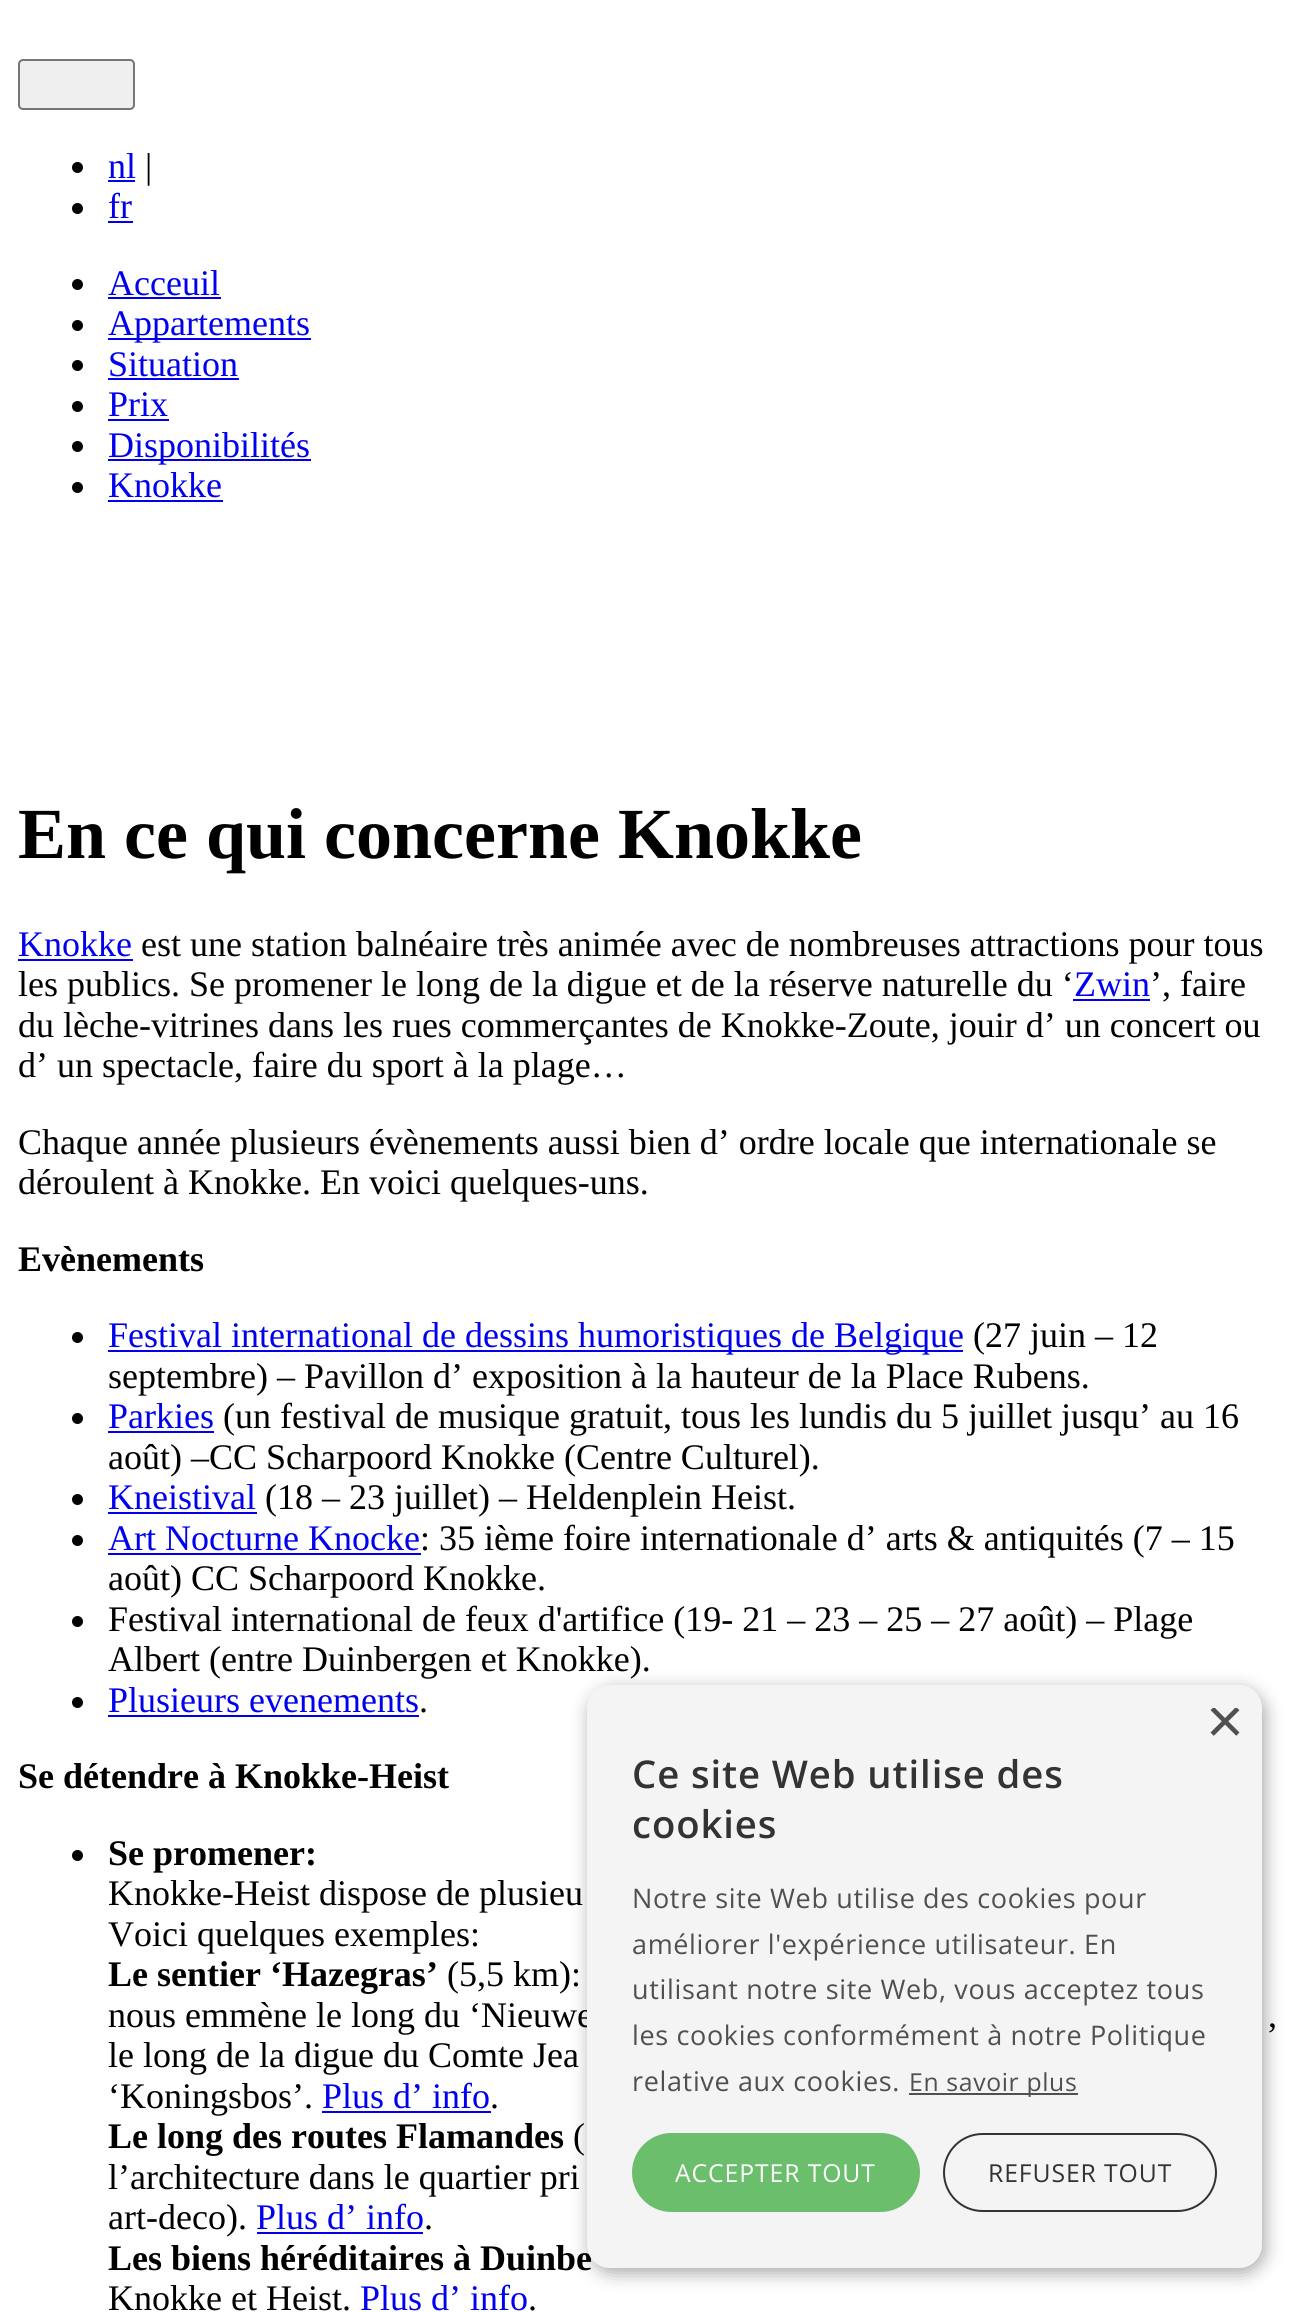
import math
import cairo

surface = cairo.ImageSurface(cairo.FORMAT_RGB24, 1306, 2312)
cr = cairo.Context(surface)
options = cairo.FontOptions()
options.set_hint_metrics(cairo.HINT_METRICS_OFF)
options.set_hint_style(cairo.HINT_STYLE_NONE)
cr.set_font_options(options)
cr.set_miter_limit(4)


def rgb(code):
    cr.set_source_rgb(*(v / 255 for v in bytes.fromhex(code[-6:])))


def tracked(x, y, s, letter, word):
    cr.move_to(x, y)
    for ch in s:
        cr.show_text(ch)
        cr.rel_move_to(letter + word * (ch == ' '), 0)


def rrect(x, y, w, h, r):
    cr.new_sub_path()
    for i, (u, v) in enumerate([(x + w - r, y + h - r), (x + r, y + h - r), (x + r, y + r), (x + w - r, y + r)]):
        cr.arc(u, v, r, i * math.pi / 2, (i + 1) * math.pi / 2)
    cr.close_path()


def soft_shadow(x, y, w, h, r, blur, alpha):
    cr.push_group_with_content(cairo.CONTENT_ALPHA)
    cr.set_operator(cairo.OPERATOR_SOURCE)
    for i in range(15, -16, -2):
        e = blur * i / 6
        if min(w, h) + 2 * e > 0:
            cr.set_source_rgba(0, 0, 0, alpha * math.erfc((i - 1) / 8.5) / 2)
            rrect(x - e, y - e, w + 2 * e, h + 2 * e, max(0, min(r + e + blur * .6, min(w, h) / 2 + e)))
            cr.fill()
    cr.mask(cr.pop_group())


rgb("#ffffff")
cr.paint()
rgb("#efefef")
rrect(19, 60, 115, 49, 4)
cr.fill_preserve()
rgb("#767676")
cr.stroke()
rgb("#000000")
cr.arc(77.5, 167.5, 5.5, 0, 2 * math.pi)
cr.fill()
rgb("#0000ee")
cr.rectangle(108, 180, 27, 2)
cr.fill()
rgb("#000000")
cr.arc(77.5, 208.5, 5.5, 0, 2 * math.pi)
cr.fill()
rgb("#0000ee")
cr.rectangle(108, 221, 25, 2)
cr.fill()
rgb("#000000")
cr.arc(77.5, 284.5, 5.5, 0, 2 * math.pi)
cr.fill()
rgb("#0000ee")
cr.rectangle(108, 297, 113, 2)
cr.fill()
rgb("#000000")
cr.arc(77.5, 325.5, 5.5, 0, 2 * math.pi)
cr.fill()
rgb("#0000ee")
cr.rectangle(108, 338, 203, 2)
cr.fill()
rgb("#000000")
cr.arc(77.5, 365.5, 5.5, 0, 2 * math.pi)
cr.fill()
rgb("#0000ee")
cr.rectangle(108, 378, 131, 2)
cr.fill()
rgb("#000000")
cr.arc(77.5, 406.5, 5.5, 0, 2 * math.pi)
cr.fill()
rgb("#0000ee")
cr.rectangle(108, 419, 61, 2)
cr.fill()
rgb("#000000")
cr.arc(77.5, 446.5, 5.5, 0, 2 * math.pi)
cr.fill()
rgb("#0000ee")
cr.rectangle(108, 459, 203, 2)
cr.fill()
rgb("#000000")
cr.arc(77.5, 487.5, 5.5, 0, 2 * math.pi)
cr.fill()
for x, y, w, h, color in [
    (108, 500, 115, 2, "#0000ee"),
    (18, 959, 115, 2, "#0000ee"),
    (1073, 999, 77, 2, "#0000ee"),
]:
    rgb(color)
    cr.rectangle(x, y, w, h)
    cr.fill()
rgb("#000000")
cr.arc(77.5, 1337.5, 5.5, 0, 2 * math.pi)
cr.fill()
rgb("#0000ee")
cr.rectangle(108, 1350, 855, 2)
cr.fill()
rgb("#000000")
cr.arc(77.5, 1418.5, 5.5, 0, 2 * math.pi)
cr.fill()
rgb("#0000ee")
cr.rectangle(108, 1431, 106, 2)
cr.fill()
rgb("#000000")
cr.arc(77.5, 1499.5, 5.5, 0, 2 * math.pi)
cr.fill()
rgb("#0000ee")
cr.rectangle(108, 1512, 149, 2)
cr.fill()
rgb("#000000")
cr.arc(77.5, 1540.5, 5.5, 0, 2 * math.pi)
cr.fill()
rgb("#0000ee")
cr.rectangle(108, 1553, 313, 2)
cr.fill()
rgb("#000000")
cr.arc(77.5, 1621.5, 5.5, 0, 2 * math.pi)
cr.fill()
cr.arc(77.5, 1702.5, 5.5, 0, 2 * math.pi)
cr.fill()
rgb("#0000ee")
cr.rectangle(108, 1715, 311, 2)
cr.fill()
rgb("#000000")
cr.arc(77.5, 1855.5, 5.5, 0, 2 * math.pi)
cr.fill()
rgb("#0000ee")
cr.rectangle(322, 2111, 169, 2)
cr.fill()
cr.rectangle(257, 2232, 166, 2)
cr.fill()
rgb("#000000")
soft_shadow(590, 1690, 675, 583, 23, 9, 0.35)
cr.select_font_face("Liberation Serif")
cr.set_font_size(36)
rgb("#0000ee")
cr.move_to(108, 178)
cr.show_text("nl")
rgb("#000000")
cr.move_to(145, 178)
cr.show_text("|")
rgb("#0000ee")
for x, y, s in [
    (108, 218, "fr"),
    (108, 295, "Acceuil"),
    (108, 335, "Appartements"),
    (108, 376, "Situation"),
    (108, 416, "Prix"),
    (108, 457, "Disponibilités"),
    (108, 497, "Knokke"),
]:
    cr.move_to(x, y)
    cr.show_text(s)
cr.select_font_face("Liberation Serif", cairo.FONT_SLANT_NORMAL, cairo.FONT_WEIGHT_BOLD)
cr.set_font_size(72)
rgb("#000000")
cr.move_to(18, 858)
cr.show_text("En ce qui concerne Knokke")
cr.select_font_face("Liberation Serif")
cr.set_font_size(36)
rgb("#0000ee")
cr.move_to(18, 956)
cr.show_text("Knokke")
rgb("#000000")
cr.move_to(141, 956)
cr.show_text("est une station balnéaire très animée avec de nombreuses attractions pour tous")
cr.move_to(18, 996)
cr.show_text("les publics. Se promener le long de la digue et de la réserve naturelle du ‘")
rgb("#0000ee")
cr.move_to(1074, 996)
cr.show_text("Zwin")
rgb("#000000")
for x, y, s in [
    (1150, 996, "’, faire"),
    (18, 1037, "du lèche-vitrines dans les rues commerçantes de Knokke-Zoute, jouir d’ un concert ou"),
    (18, 1077, "d’ un spectacle, faire du sport à la plage…"),
    (18, 1154, "Chaque année plusieurs évènements aussi bien d’ ordre locale que internationale se"),
    (18, 1194, "déroulent à Knokke. En voici quelques-uns."),
]:
    cr.move_to(x, y)
    cr.show_text(s)
cr.select_font_face("Liberation Serif", cairo.FONT_SLANT_NORMAL, cairo.FONT_WEIGHT_BOLD)
cr.move_to(18, 1271)
cr.show_text("Evènements")
cr.select_font_face("Liberation Serif")
rgb("#0000ee")
cr.move_to(108, 1347)
cr.show_text("Festival international de dessins humoristiques de Belgique")
rgb("#000000")
cr.move_to(973, 1347)
cr.show_text("(27 juin – 12")
cr.move_to(108, 1388)
cr.show_text("septembre) – Pavillon d’ exposition à la hauteur de la Place Rubens.")
rgb("#0000ee")
cr.move_to(108, 1428)
cr.show_text("Parkies")
rgb("#000000")
cr.move_to(223, 1428)
cr.show_text("(un festival de musique gratuit, tous les lundis du 5 juillet jusqu’ au 16")
cr.move_to(108, 1469)
cr.show_text("août) –CC Scharpoord Knokke (Centre Culturel).")
rgb("#0000ee")
cr.move_to(108, 1509)
cr.show_text("Kneistival")
rgb("#000000")
cr.move_to(265, 1509)
cr.show_text("(18 – 23 juillet) – Heldenplein Heist.")
rgb("#0000ee")
cr.move_to(108, 1550)
cr.show_text("Art Nocturne Knocke")
rgb("#000000")
for x, y, s in [
    (420, 1550, ": 35 ième foire internationale d’ arts & antiquités (7 – 15"),
    (108, 1590, "août) CC Scharpoord Knokke."),
    (108, 1631, "Festival international de feux d'artifice (19- 21 – 23 – 25 – 27 août) – Plage"),
    (108, 1671, "Albert (entre Duinbergen et Knokke)."),
]:
    cr.move_to(x, y)
    cr.show_text(s)
rgb("#0000ee")
cr.move_to(108, 1712)
cr.show_text("Plusieurs evenements")
rgb("#000000")
cr.move_to(419, 1712)
cr.show_text(".")
cr.select_font_face("Liberation Serif", cairo.FONT_SLANT_NORMAL, cairo.FONT_WEIGHT_BOLD)
cr.move_to(18, 1788)
cr.show_text("Se détendre à Knokke-Heist")
cr.move_to(108, 1865)
cr.show_text("Se promener:")
cr.select_font_face("Liberation Serif")
cr.move_to(108, 1905)
cr.show_text("Knokke-Heist dispose de plusieu")
cr.move_to(108, 1946)
cr.show_text("Voici quelques exemples:")
cr.select_font_face("Liberation Serif", cairo.FONT_SLANT_NORMAL, cairo.FONT_WEIGHT_BOLD)
cr.move_to(108, 1986)
cr.show_text("Le sentier ‘Hazegras’")
cr.select_font_face("Liberation Serif")
for x, y, s in [
    (447, 1986, "(5,5 km):"),
    (108, 2027, "nous emmène le long du ‘Nieuwe"),
    (1268, 2027, ","),
    (108, 2067, "le long de la digue du Comte Jea"),
    (108, 2108, "‘Koningsbos’."),
]:
    cr.move_to(x, y)
    cr.show_text(s)
rgb("#0000ee")
cr.move_to(322, 2108)
cr.show_text("Plus d’ info")
rgb("#000000")
cr.move_to(490, 2108)
cr.show_text(".")
cr.select_font_face("Liberation Serif", cairo.FONT_SLANT_NORMAL, cairo.FONT_WEIGHT_BOLD)
cr.move_to(108, 2148)
cr.show_text("Le long des routes Flamandes")
cr.select_font_face("Liberation Serif")
for x, y, s in [
    (573, 2148, "("),
    (108, 2189, "l’architecture dans le quartier pri"),
    (108, 2229, "art-deco)."),
]:
    cr.move_to(x, y)
    cr.show_text(s)
rgb("#0000ee")
cr.move_to(256, 2229)
cr.show_text("Plus d’ info")
rgb("#000000")
cr.move_to(424, 2229)
cr.show_text(".")
cr.select_font_face("Liberation Serif", cairo.FONT_SLANT_NORMAL, cairo.FONT_WEIGHT_BOLD)
cr.move_to(108, 2270)
cr.show_text("Les biens héréditaires à Duinbe")
cr.select_font_face("Liberation Serif")
cr.move_to(108, 2310)
cr.show_text("Knokke et Heist.")
rgb("#0000ee")
cr.move_to(360, 2310)
cr.show_text("Plus d’ info")
rgb("#000000")
cr.move_to(528, 2310)
cr.show_text(".")
rgb("#f4f4f4")
rrect(587, 1685, 675, 583, 23)
cr.fill()
cr.save()
cr.rectangle(1206, 1708, 34, 34)
cr.clip()
cr.select_font_face("Liberation Sans")
cr.set_font_size(65)
rgb("#505050")
cr.move_to(1206, 1743)
cr.show_text("×")
cr.restore()
cr.select_font_face("Open Sans SemiBold")
cr.set_font_size(38.25)
rgb("#333333")
tracked(632, 1788, "Ce site Web utilise des", 0.9, 0)
tracked(632, 1838, "cookies", 0.9, 0)
cr.select_font_face("Open Sans")
cr.set_font_size(27)
rgb("#505050")
for x, y, s in [
    (632, 1908, "Notre site Web utilise des cookies pour"),
    (632, 1954, "améliorer l'expérience utilisateur. En"),
    (632, 1999, "utilisant notre site Web, vous acceptez tous"),
    (632, 2045, "les cookies conformément à notre Politique"),
    (632, 2091, "relative aux cookies."),
]:
    tracked(x, y, s, 0.65, 0)
cr.rectangle(909, 2093, 169, 2)
cr.fill()
cr.set_font_size(24.75)
tracked(909, 2091, "En savoir plus", 0.65, 0)
rgb("#6bbe6b")
rrect(632, 2133, 288, 79, 39.5)
cr.fill()
rgb("#ffffff")
tracked(675, 2182, "ACCEPTER TOUT", 0.9, 0)
rrect(944, 2134, 272, 77, 38.5)
rgb("#333333")
cr.stroke()
tracked(988, 2182, "REFUSER TOUT", 0.9, 0)
surface.write_to_png("page.png")
